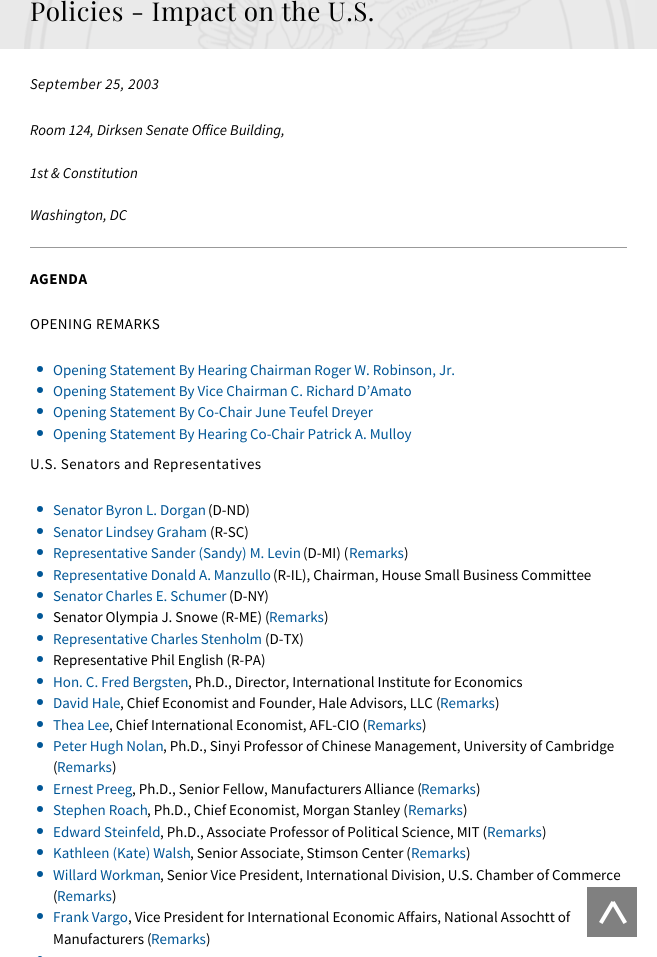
import math
import cairo

surface = cairo.ImageSurface(cairo.FORMAT_RGB24, 657, 957)
cr = cairo.Context(surface)
options = cairo.FontOptions()
options.set_hint_metrics(cairo.HINT_METRICS_OFF)
options.set_hint_style(cairo.HINT_STYLE_NONE)
cr.set_font_options(options)
cr.set_miter_limit(4)


def rgb(code):
    cr.set_source_rgb(*(v / 255 for v in bytes.fromhex(code[-6:])))


def tracked(x, y, s, letter, word):
    cr.move_to(x, y)
    for ch in s:
        cr.show_text(ch)
        cr.rel_move_to(letter + word * (ch == ' '), 0)


def rrect(x, y, w, h, r):
    cr.new_sub_path()
    for i, (u, v) in enumerate([(x + w - r, y + h - r), (x + r, y + h - r), (x + r, y + r), (x + w - r, y + r)]):
        cr.arc(u, v, r, i * math.pi / 2, (i + 1) * math.pi / 2)
    cr.close_path()


def image(path, x, y, w, h):
    cr.save()
    cr.set_source_surface(cairo.ImageSurface.create_from_png(path), x, y)
    cr.rectangle(x, y, w, h)
    cr.fill()
    cr.restore()


rgb("#ffffff")
cr.paint()
rgb("#e9e9e9")
cr.rectangle(0, 0, 657, 49)
cr.fill()
image("img/1.png", 24, 0, 611, 49)
rgb("#999999")
cr.rectangle(30, 247, 597, 1)
cr.fill()
rgb("#005696")
cr.arc(40, 369, 3, 0, 2 * math.pi)
cr.fill()
cr.arc(40, 390, 3, 0, 2 * math.pi)
cr.fill()
cr.arc(40, 411, 3, 0, 2 * math.pi)
cr.fill()
cr.arc(40, 433, 3, 0, 2 * math.pi)
cr.fill()
cr.arc(40, 509, 3, 0, 2 * math.pi)
cr.fill()
cr.arc(40, 531, 3, 0, 2 * math.pi)
cr.fill()
cr.arc(40, 552, 3, 0, 2 * math.pi)
cr.fill()
cr.arc(40, 574, 3, 0, 2 * math.pi)
cr.fill()
cr.arc(40, 595, 3, 0, 2 * math.pi)
cr.fill()
cr.arc(40, 616, 3, 0, 2 * math.pi)
cr.fill()
cr.arc(40, 638, 3, 0, 2 * math.pi)
cr.fill()
cr.arc(40, 659, 3, 0, 2 * math.pi)
cr.fill()
cr.arc(40, 681, 3, 0, 2 * math.pi)
cr.fill()
cr.arc(40, 702, 3, 0, 2 * math.pi)
cr.fill()
cr.arc(40, 724, 3, 0, 2 * math.pi)
cr.fill()
cr.arc(40, 745, 3, 0, 2 * math.pi)
cr.fill()
cr.arc(40, 788, 3, 0, 2 * math.pi)
cr.fill()
cr.arc(40, 809, 3, 0, 2 * math.pi)
cr.fill()
cr.arc(40, 831, 3, 0, 2 * math.pi)
cr.fill()
cr.arc(40, 852, 3, 0, 2 * math.pi)
cr.fill()
cr.arc(40, 874, 3, 0, 2 * math.pi)
cr.fill()
cr.arc(40, 916, 3, 0, 2 * math.pi)
cr.fill()
rrect(37, 956, 6, 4, 3)
cr.fill()
rgb("#808080")
cr.rectangle(587, 887, 50, 50)
cr.fill()
rgb("#ffffff")
cr.new_path()
cr.move_to(611, 903)
cr.line_to(614.5, 901)
cr.line_to(627, 922)
cr.line_to(623.5, 924)
cr.close_path()
cr.fill()
cr.new_path()
cr.move_to(611.5, 901)
cr.line_to(615, 903)
cr.line_to(602.5, 924)
cr.line_to(599, 922)
cr.close_path()
cr.fill()
cr.select_font_face("Playfair Display")
cr.set_font_size(26)
rgb("#000000")
tracked(30, 21, "Policies - Impact on the U.S.", 0.55, 0)
cr.select_font_face("Source Sans Pro", cairo.FONT_SLANT_ITALIC)
cr.set_font_size(15)
tracked(30, 89, "September 25, 2003", 0.5, 0)
for x, y, s in [
    (30, 135, "Room 124, Dirksen Senate Office Building,"),
    (30, 178, "1st & Constitution"),
    (30, 220, "Washington, DC"),
]:
    cr.move_to(x, y)
    cr.show_text(s)
cr.select_font_face("Source Sans Pro", cairo.FONT_SLANT_NORMAL, cairo.FONT_WEIGHT_BOLD)
tracked(30, 284, "AGENDA", 0.5, 0)
cr.select_font_face("Source Sans Pro")
tracked(30, 329, "OPENING REMARKS", 0.5, 0)
rgb("#005696")
for x, y, s in [
    (53, 375, "Opening Statement By Hearing Chairman Roger W. Robinson, Jr."),
    (53, 396, "Opening Statement By Vice Chairman C. Richard D’Amato"),
    (53, 417, "Opening Statement By Co-Chair June Teufel Dreyer"),
    (53, 439, "Opening Statement By Hearing Co-Chair Patrick A. Mulloy"),
]:
    cr.move_to(x, y)
    cr.show_text(s)
rgb("#000000")
tracked(30, 469, "U.S. Senators and Representatives", 0.5, 0)
rgb("#005696")
cr.move_to(53, 515)
cr.show_text("Senator Byron L. Dorgan")
rgb("#000000")
cr.move_to(208, 515)
cr.show_text("(D-ND)")
rgb("#005696")
cr.move_to(53, 537)
cr.show_text("Senator Lindsey Graham")
rgb("#000000")
cr.move_to(210, 537)
cr.show_text("(R-SC)")
rgb("#005696")
cr.move_to(53, 558)
cr.show_text("Representative Sander (Sandy) M. Levin")
rgb("#000000")
cr.move_to(303, 558)
cr.show_text("(D-MI) (")
rgb("#005696")
cr.move_to(349, 558)
cr.show_text("Remarks")
rgb("#000000")
cr.move_to(404, 558)
cr.show_text(")")
rgb("#005696")
cr.move_to(53, 580)
cr.show_text("Representative Donald A. Manzullo")
rgb("#000000")
cr.move_to(273, 580)
cr.show_text("(R-IL), Chairman, House Small Business Committee")
rgb("#005696")
cr.move_to(53, 601)
cr.show_text("Senator Charles E. Schumer")
rgb("#000000")
cr.move_to(229, 601)
cr.show_text("(D-NY)")
cr.move_to(53, 622)
cr.show_text("Senator Olympia J. Snowe (R-ME) (")
rgb("#005696")
cr.move_to(269, 622)
cr.show_text("Remarks")
rgb("#000000")
cr.move_to(324, 622)
cr.show_text(")")
rgb("#005696")
cr.move_to(53, 644)
cr.show_text("Representative Charles Stenholm")
rgb("#000000")
cr.move_to(265, 644)
cr.show_text("(D-TX)")
cr.move_to(53, 665)
cr.show_text("Representative Phil English (R-PA)")
rgb("#005696")
cr.move_to(53, 687)
cr.show_text("Hon. C. Fred Bergsten")
rgb("#000000")
cr.move_to(188, 687)
cr.show_text(", Ph.D., Director, International Institute for Economics")
rgb("#005696")
cr.move_to(53, 708)
cr.show_text("David Hale")
rgb("#000000")
cr.move_to(120, 708)
cr.show_text(", Chief Economist and Founder, Hale Advisors, LLC (")
rgb("#005696")
cr.move_to(440, 708)
cr.show_text("Remarks")
rgb("#000000")
cr.move_to(495, 708)
cr.show_text(")")
rgb("#005696")
cr.move_to(53, 730)
cr.show_text("Thea Lee")
rgb("#000000")
cr.move_to(109, 730)
cr.show_text(", Chief International Economist, AFL-CIO (")
rgb("#005696")
cr.move_to(367, 730)
cr.show_text("Remarks")
rgb("#000000")
cr.move_to(422, 730)
cr.show_text(")")
rgb("#005696")
cr.move_to(53, 751)
cr.show_text("Peter Hugh Nolan")
rgb("#000000")
cr.move_to(163, 751)
cr.show_text(", Ph.D., Sinyi Professor of Chinese Management, University of Cambridge")
cr.move_to(53, 772)
cr.show_text("(")
rgb("#005696")
cr.move_to(57, 772)
cr.show_text("Remarks")
rgb("#000000")
cr.move_to(112, 772)
cr.show_text(")")
rgb("#005696")
cr.move_to(53, 794)
cr.show_text("Ernest Preeg")
rgb("#000000")
cr.move_to(132, 794)
cr.show_text(", Ph.D., Senior Fellow, Manufacturers Alliance (")
rgb("#005696")
cr.move_to(421, 794)
cr.show_text("Remarks")
rgb("#000000")
cr.move_to(476, 794)
cr.show_text(")")
rgb("#005696")
cr.move_to(53, 815)
cr.show_text("Stephen Roach")
rgb("#000000")
cr.move_to(147, 815)
cr.show_text(", Ph.D., Chief Economist, Morgan Stanley (")
rgb("#005696")
cr.move_to(408, 815)
cr.show_text("Remarks")
rgb("#000000")
cr.move_to(463, 815)
cr.show_text(")")
rgb("#005696")
cr.move_to(53, 837)
cr.show_text("Edward Steinfeld")
rgb("#000000")
cr.move_to(160, 837)
cr.show_text(", Ph.D., Associate Professor of Political Science, MIT (")
rgb("#005696")
cr.move_to(487, 837)
cr.show_text("Remarks")
rgb("#000000")
cr.move_to(542, 837)
cr.show_text(")")
rgb("#005696")
cr.move_to(53, 858)
cr.show_text("Kathleen (Kate) Walsh")
rgb("#000000")
cr.move_to(190, 858)
cr.show_text(", Senior Associate, Stimson Center (")
rgb("#005696")
cr.move_to(411, 858)
cr.show_text("Remarks")
rgb("#000000")
cr.move_to(466, 858)
cr.show_text(")")
rgb("#005696")
cr.move_to(53, 880)
cr.show_text("Willard Workman")
rgb("#000000")
cr.move_to(160, 880)
cr.show_text(", Senior Vice President, International Division, U.S. Chamber of Commerce")
cr.move_to(53, 901)
cr.show_text("(")
rgb("#005696")
cr.move_to(57, 901)
cr.show_text("Remarks")
rgb("#000000")
cr.move_to(112, 901)
cr.show_text(")")
rgb("#005696")
cr.move_to(53, 922)
cr.show_text("Frank Vargo")
rgb("#000000")
cr.move_to(128, 922)
cr.show_text(", Vice President for International Economic Affairs, National Assochtt of")
cr.move_to(53, 944)
cr.show_text("Manufacturers (")
rgb("#005696")
cr.move_to(151, 944)
cr.show_text("Remarks")
rgb("#000000")
cr.move_to(206, 944)
cr.show_text(")")
surface.write_to_png("page.png")
